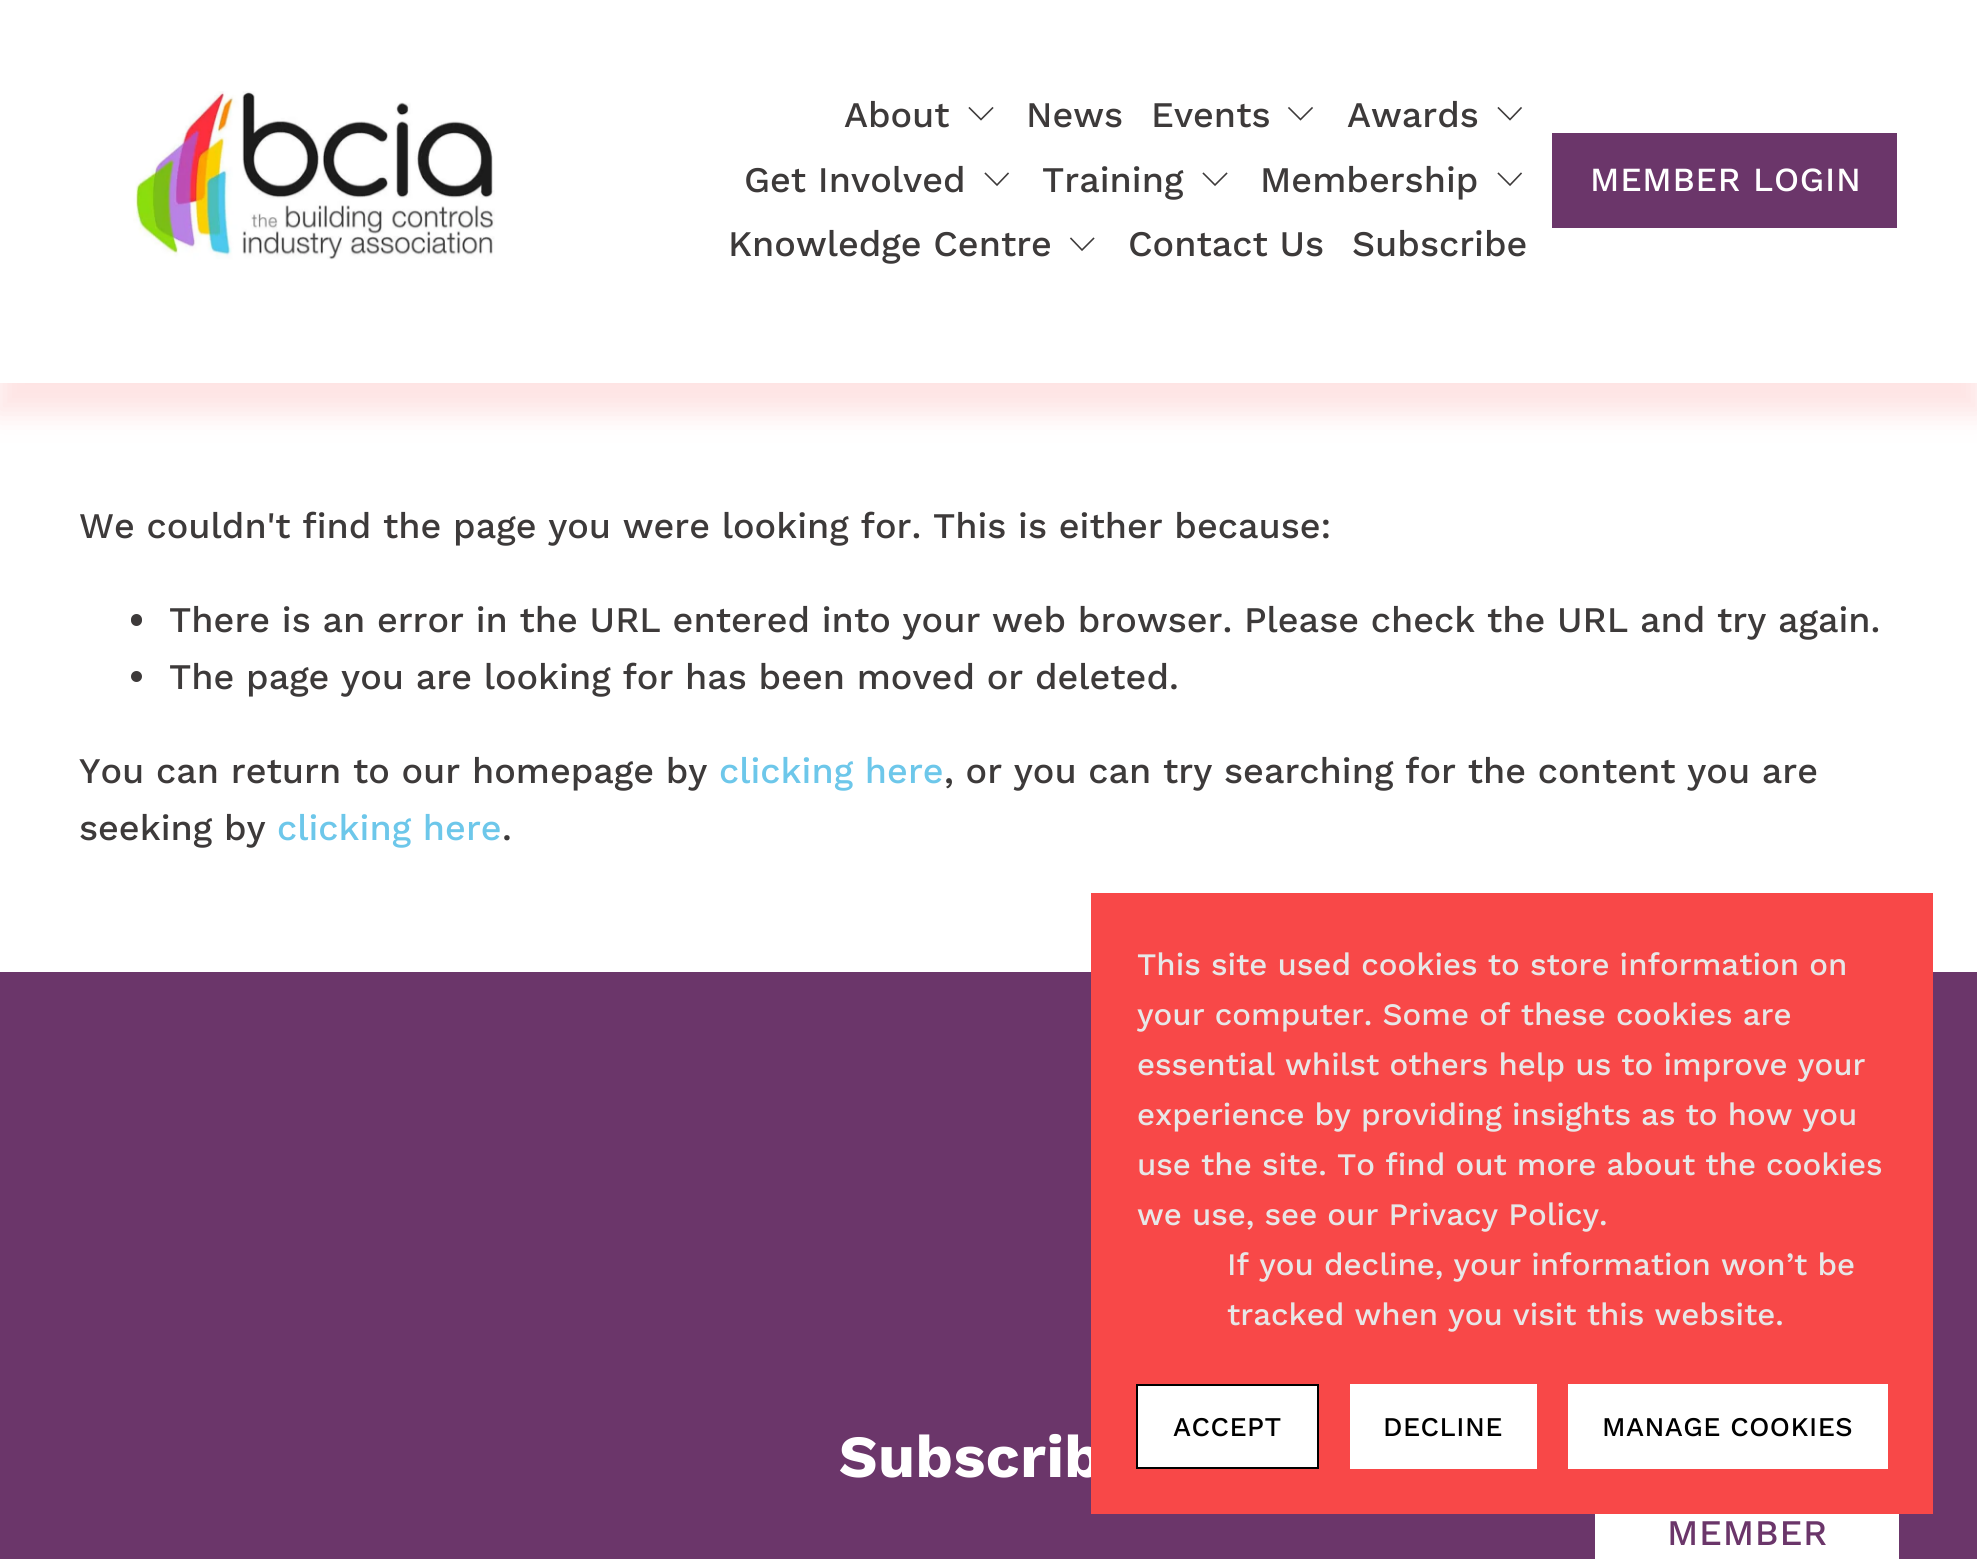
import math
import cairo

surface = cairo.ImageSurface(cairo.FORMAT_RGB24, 1977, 1559)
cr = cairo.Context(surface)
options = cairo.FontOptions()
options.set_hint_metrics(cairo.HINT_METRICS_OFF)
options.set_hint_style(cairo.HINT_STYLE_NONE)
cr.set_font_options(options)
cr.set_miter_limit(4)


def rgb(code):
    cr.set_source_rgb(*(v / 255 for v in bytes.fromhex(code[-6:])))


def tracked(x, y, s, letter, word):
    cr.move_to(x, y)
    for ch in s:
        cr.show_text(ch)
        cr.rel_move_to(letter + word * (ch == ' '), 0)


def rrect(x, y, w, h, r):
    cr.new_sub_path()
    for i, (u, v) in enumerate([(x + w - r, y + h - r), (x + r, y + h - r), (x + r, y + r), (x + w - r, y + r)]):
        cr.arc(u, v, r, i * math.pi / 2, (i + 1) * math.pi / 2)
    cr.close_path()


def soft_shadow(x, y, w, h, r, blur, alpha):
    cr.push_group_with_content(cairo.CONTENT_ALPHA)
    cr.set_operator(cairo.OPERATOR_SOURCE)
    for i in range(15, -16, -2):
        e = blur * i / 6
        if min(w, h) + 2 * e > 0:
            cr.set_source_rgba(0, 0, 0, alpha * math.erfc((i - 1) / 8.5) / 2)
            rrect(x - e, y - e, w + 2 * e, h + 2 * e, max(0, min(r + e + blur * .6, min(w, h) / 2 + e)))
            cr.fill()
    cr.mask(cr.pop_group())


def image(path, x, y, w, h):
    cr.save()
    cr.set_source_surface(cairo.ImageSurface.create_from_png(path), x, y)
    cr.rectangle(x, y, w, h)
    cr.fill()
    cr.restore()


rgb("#ffffff")
cr.paint()
cr.save()
cr.set_fill_rule(cairo.FILL_RULE_EVEN_ODD)
cr.new_path()
cr.move_to(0, 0)
cr.line_to(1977, 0)
cr.line_to(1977, 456)
cr.line_to(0, 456)
cr.close_path()
cr.move_to(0, 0)
cr.line_to(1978, 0)
cr.line_to(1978, 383)
cr.line_to(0, 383)
cr.close_path()
cr.clip()
rgb("#fee4e4")
soft_shadow(-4, 23, 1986, 391, 0, 13.5, 1)
cr.restore()
image("img/1.png", 133, 91, 362, 169)
cr.new_path()
cr.move_to(992.5, 108)
cr.line_to(981, 119.5)
cr.line_to(969.5, 108)
rgb("#3d3a3a")
cr.set_line_width(1.6)
cr.set_line_cap(cairo.LINE_CAP_SQUARE)
cr.stroke()
cr.new_path()
cr.move_to(1312, 108)
cr.line_to(1300.5, 119.5)
cr.line_to(1289, 108)
cr.stroke()
cr.new_path()
cr.move_to(1521, 108)
cr.line_to(1510, 119.5)
cr.line_to(1498.5, 108)
cr.stroke()
cr.new_path()
cr.move_to(1008, 173.5)
cr.line_to(997, 185)
cr.line_to(985.5, 173.5)
cr.stroke()
cr.new_path()
cr.move_to(1226.5, 173.5)
cr.line_to(1215, 185)
cr.line_to(1203.5, 173.5)
cr.stroke()
cr.new_path()
cr.move_to(1521, 173.5)
cr.line_to(1510, 185)
cr.line_to(1498.5, 173.5)
cr.stroke()
cr.new_path()
cr.move_to(1093.5, 238.5)
cr.line_to(1082, 250)
cr.line_to(1071, 238.5)
cr.stroke()
rgb("#6b366a")
cr.rectangle(1552, 133, 345, 95)
cr.fill()
rgb("#3d3a3a")
rrect(131, 614, 11, 12, 5.5)
cr.fill()
cr.arc(136.5, 676.5, 5.5, 0, 2 * math.pi)
cr.fill()
rgb("#6b366a")
cr.rectangle(0, 972, 1977, 587)
cr.fill()
rgb("#ffffff")
cr.rectangle(1595, 1514, 304, 45)
cr.fill()
cr.select_font_face("Work Sans Medium")
cr.set_font_size(36)
rgb("#3d3a3a")
for x, y, s in [
    (844, 127, "About"),
    (1026, 127, "News"),
    (1151, 127, "Events"),
    (1347, 127, "Awards"),
    (744, 192, "Get Involved"),
    (1042, 192, "Training"),
    (1260, 192, "Membership"),
    (728, 256, "Knowledge Centre"),
    (1128, 256, "Contact Us"),
    (1352, 256, "Subscribe"),
]:
    cr.move_to(x, y)
    cr.show_text(s)
cr.set_font_size(33.75)
rgb("#ffffff")
tracked(1590, 191, "MEMBER LOGIN", 0.75, 0)
cr.set_font_size(36)
rgb("#3d3a3a")
for x, y, s in [
    (79, 538, "We couldn't find the page you were looking for. This is either because:"),
    (169, 632, "There is an error in the URL entered into your web browser. Please check the URL and try again."),
    (169, 689, "The page you are looking for has been moved or deleted."),
    (79, 783, "You can return to our homepage by"),
]:
    cr.move_to(x, y)
    cr.show_text(s)
rgb("#6dc7ea")
cr.move_to(719, 783)
cr.show_text("clicking here")
rgb("#3d3a3a")
cr.move_to(944, 783)
cr.show_text(", or you can try searching for the content you are")
cr.move_to(79, 840)
cr.show_text("seeking by")
rgb("#6dc7ea")
cr.move_to(277, 840)
cr.show_text("clicking here")
rgb("#3d3a3a")
cr.move_to(502, 840)
cr.show_text(".")
cr.select_font_face("Work Sans", cairo.FONT_SLANT_NORMAL, cairo.FONT_WEIGHT_BOLD)
cr.set_font_size(59.75)
rgb("#ffffff")
tracked(839, 1477, "Subscrib", 0.5, 0)
rgb("#f84848")
cr.rectangle(1091, 893, 842, 621)
cr.fill()
rgb("#ffffff")
cr.rectangle(1568, 1384, 320, 85)
cr.fill()
cr.select_font_face("Work Sans Medium")
cr.set_font_size(27)
rgb("#000000")
tracked(1602, 1436, "MANAGE COOKIES", 0.5, 0)
rgb("#ffffff")
cr.rectangle(1350, 1384, 187, 85)
cr.fill()
rgb("#000000")
tracked(1383, 1436, "DECLINE", 0.5, 0)
rgb("#ffffff")
cr.rectangle(1137, 1385, 181, 83)
cr.fill_preserve()
rgb("#000000")
cr.set_line_width(2)
cr.set_line_cap(cairo.LINE_CAP_BUTT)
cr.stroke()
tracked(1173, 1436, "ACCEPT", 0.5, 0)
cr.set_font_size(31.25)
rgb("#e7e7e7")
for x, y, s in [
    (1227, 1325, "tracked when you visit this website."),
    (1227, 1275, "If you decline, your information won’t be"),
    (1137, 1225, "we use, see our Privacy Policy."),
    (1137, 1175, "use the site. To find out more about the cookies"),
    (1137, 1125, "experience by providing insights as to how you"),
    (1137, 1075, "essential whilst others help us to improve your"),
    (1137, 1025, "your computer. Some of these cookies are"),
    (1137, 975, "This site used cookies to store information on"),
]:
    cr.move_to(x, y)
    cr.show_text(s)
cr.set_font_size(36)
rgb("#6b366a")
tracked(1667, 1545, "MEMBER", 0.75, 0)
surface.write_to_png("page.png")
